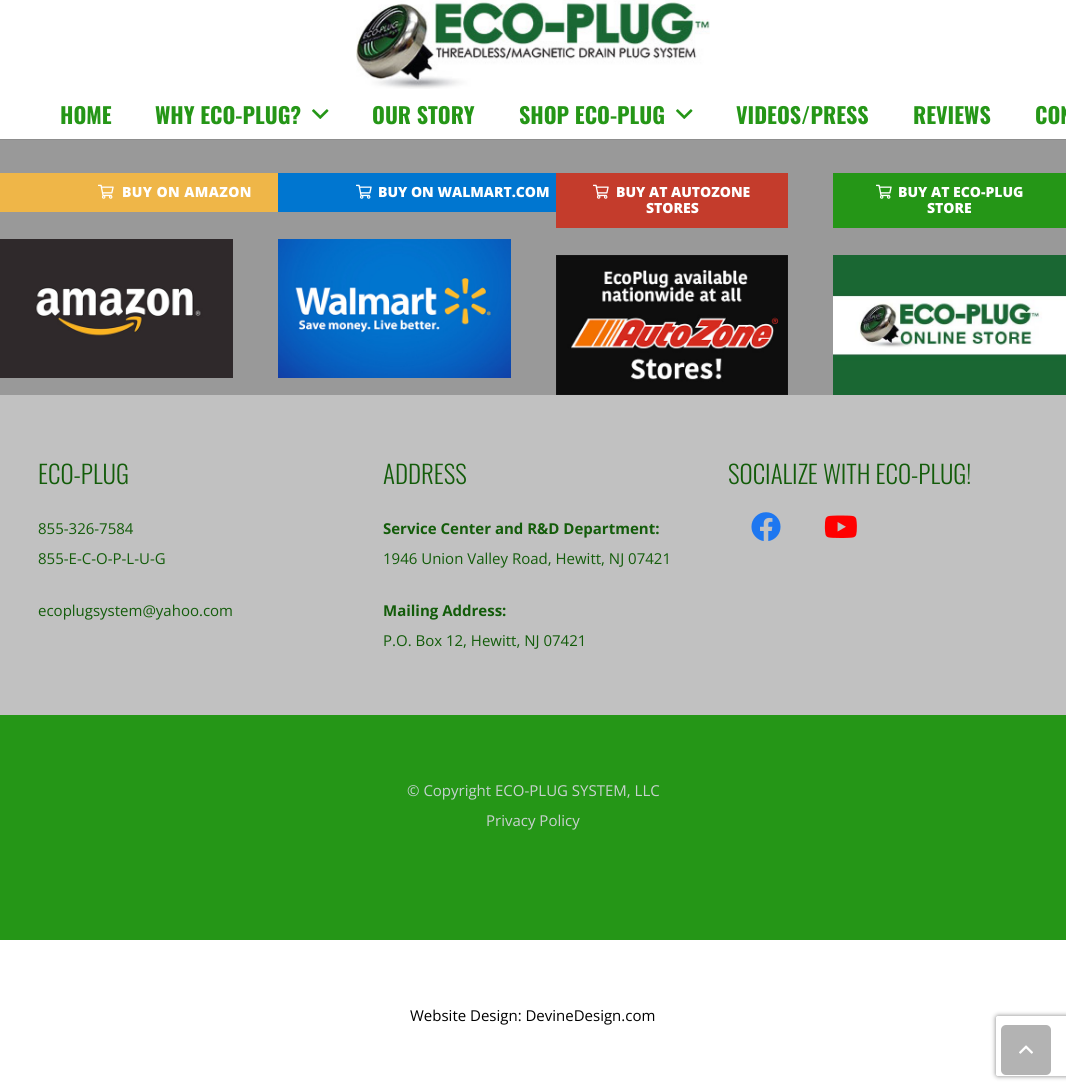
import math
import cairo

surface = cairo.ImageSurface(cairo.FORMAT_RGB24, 1066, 1090)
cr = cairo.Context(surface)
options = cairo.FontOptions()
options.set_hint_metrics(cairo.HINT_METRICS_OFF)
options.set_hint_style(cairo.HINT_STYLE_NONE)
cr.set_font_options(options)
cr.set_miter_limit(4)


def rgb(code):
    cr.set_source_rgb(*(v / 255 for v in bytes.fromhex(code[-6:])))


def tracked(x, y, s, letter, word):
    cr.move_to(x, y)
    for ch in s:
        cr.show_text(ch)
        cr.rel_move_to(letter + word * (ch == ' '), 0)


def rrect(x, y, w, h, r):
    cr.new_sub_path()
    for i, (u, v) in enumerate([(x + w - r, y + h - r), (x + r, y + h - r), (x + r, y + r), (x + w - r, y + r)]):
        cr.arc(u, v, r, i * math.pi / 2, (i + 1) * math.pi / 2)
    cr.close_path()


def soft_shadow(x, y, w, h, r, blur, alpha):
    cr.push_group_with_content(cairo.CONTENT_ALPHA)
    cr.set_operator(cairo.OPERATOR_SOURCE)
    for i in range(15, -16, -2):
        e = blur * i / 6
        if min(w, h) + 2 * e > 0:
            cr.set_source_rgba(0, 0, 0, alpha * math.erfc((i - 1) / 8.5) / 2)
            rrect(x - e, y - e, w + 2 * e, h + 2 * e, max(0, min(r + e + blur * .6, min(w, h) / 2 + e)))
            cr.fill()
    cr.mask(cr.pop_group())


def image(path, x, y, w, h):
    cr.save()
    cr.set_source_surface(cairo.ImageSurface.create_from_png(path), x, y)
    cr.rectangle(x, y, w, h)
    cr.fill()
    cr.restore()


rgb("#ffffff")
cr.paint()
image("img/1.png", 356, 0, 354, 89)
rgb("#8d8d8d")
cr.rectangle(0, 139, 1066, 1)
cr.fill()
image("img/2.png", 312, 109, 17, 10)
image("img/2.png", 676, 109, 17, 10)
rgb("#999999")
cr.rectangle(0, 140, 1066, 255)
cr.fill()
rgb("#efb648")
cr.rectangle(0, 173, 278, 39)
cr.fill()
image("img/3.png", 98, 184, 16, 15)
image("img/4.png", 0, 239, 233, 139)
rgb("#0076d0")
cr.rectangle(278, 173, 278, 39)
cr.fill()
image("img/5.png", 356, 184, 16, 15)
image("img/6.png", 278, 239, 233, 139)
rgb("#c43c2c")
cr.rectangle(556, 173, 232, 55)
cr.fill()
image("img/7.png", 593, 184, 16, 15)
image("img/8.png", 556, 255, 232, 140)
rgb("#259617")
cr.rectangle(833, 173, 233, 55)
cr.fill()
image("img/9.png", 876, 184, 16, 15)
image("img/10.png", 833, 255, 233, 140)
rgb("#c1c1c1")
cr.rectangle(0, 395, 1066, 320)
cr.fill()
image("img/11.png", 751, 512, 30, 29)
image("img/12.png", 824, 515, 33, 23)
rgb("#259617")
cr.rectangle(0, 715, 1066, 225)
cr.fill()
cr.save()
cr.set_fill_rule(cairo.FILL_RULE_EVEN_ODD)
cr.new_path()
cr.move_to(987, 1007)
cr.line_to(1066, 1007)
cr.line_to(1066, 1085)
cr.line_to(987, 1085)
cr.close_path()
cr.move_to(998, 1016)
cr.line_to(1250, 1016)
cr.curve_to(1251, 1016, 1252, 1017, 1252, 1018)
cr.line_to(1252, 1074)
cr.curve_to(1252, 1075, 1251, 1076, 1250, 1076)
cr.line_to(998, 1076)
cr.curve_to(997, 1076, 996, 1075, 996, 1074)
cr.line_to(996, 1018)
cr.curve_to(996, 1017, 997, 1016, 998, 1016)
cr.close_path()
cr.clip()
rgb("#808080")
soft_shadow(996, 1016, 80, 60, 2, 2.5, 1)
cr.restore()
rgb("#b3b3b3")
rrect(1001, 1025, 50, 50, 5)
cr.fill()
image("img/13.png", 1019, 1045, 14, 9)
cr.select_font_face("Oswald", cairo.FONT_SLANT_NORMAL, cairo.FONT_WEIGHT_BOLD)
cr.set_font_size(22)
rgb("#259617")
for x, y, s in [
    (60, 124, "HOME"),
    (155, 124, "WHY ECO-PLUG?"),
    (372, 124, "OUR STORY"),
    (519, 124, "SHOP ECO-PLUG"),
    (736, 124, "VIDEOS/PRESS"),
    (913, 124, "REVIEWS"),
    (1035, 124, "CON"),
]:
    cr.move_to(x, y)
    cr.show_text(s)
cr.select_font_face("Open Sans ExtraBold")
cr.set_font_size(14)
rgb("#ffffff")
tracked(122, 197, "BUY ON AMAZON", 0.4, 0)
for x, y, s in [
    (378, 197, "BUY ON WALMART.COM"),
    (616, 197, "BUY AT AUTOZONE"),
    (646, 213, "STORES"),
    (898, 197, "BUY AT ECO-PLUG"),
    (927, 213, "STORE"),
]:
    cr.move_to(x, y)
    cr.show_text(s)
cr.select_font_face("Oswald Light")
cr.set_font_size(25)
rgb("#135c0a")
cr.move_to(38, 484)
cr.show_text("ECO-PLUG")
cr.select_font_face("Open Sans")
cr.set_font_size(15)
for x, y, s in [
    (38, 534, "855-326-7584"),
    (38, 564, "855-E-C-O-P-L-U-G"),
    (38, 616, "ecoplugsystem@yahoo.com"),
]:
    cr.move_to(x, y)
    cr.show_text(s)
cr.select_font_face("Oswald Light")
cr.set_font_size(25)
cr.move_to(383, 484)
cr.show_text("ADDRESS")
cr.select_font_face("Open Sans", cairo.FONT_SLANT_NORMAL, cairo.FONT_WEIGHT_BOLD)
cr.set_font_size(15)
cr.move_to(383, 534)
cr.show_text("Service Center and R&D Department:")
cr.select_font_face("Open Sans")
cr.move_to(383, 564)
cr.show_text("1946 Union Valley Road, Hewitt, NJ 07421")
cr.select_font_face("Open Sans", cairo.FONT_SLANT_NORMAL, cairo.FONT_WEIGHT_BOLD)
cr.move_to(383, 616)
cr.show_text("Mailing Address:")
cr.select_font_face("Open Sans")
cr.move_to(383, 646)
cr.show_text("P.O. Box 12, Hewitt, NJ 07421")
cr.select_font_face("Oswald Light")
cr.set_font_size(25)
cr.move_to(728, 484)
cr.show_text("SOCIALIZE WITH ECO-PLUG!")
cr.select_font_face("Open Sans")
cr.set_font_size(15)
rgb("#c3d1cf")
cr.move_to(407, 796)
cr.show_text("© Copyright")
rgb("#c9d1d0")
cr.move_to(495, 796)
cr.show_text("ECO-PLUG SYSTEM, LLC")
cr.move_to(486, 826)
cr.show_text("Privacy Policy")
rgb("#000000")
cr.move_to(410, 1021)
cr.show_text("Website Design: DevineDesign.com")
surface.write_to_png("page.png")
